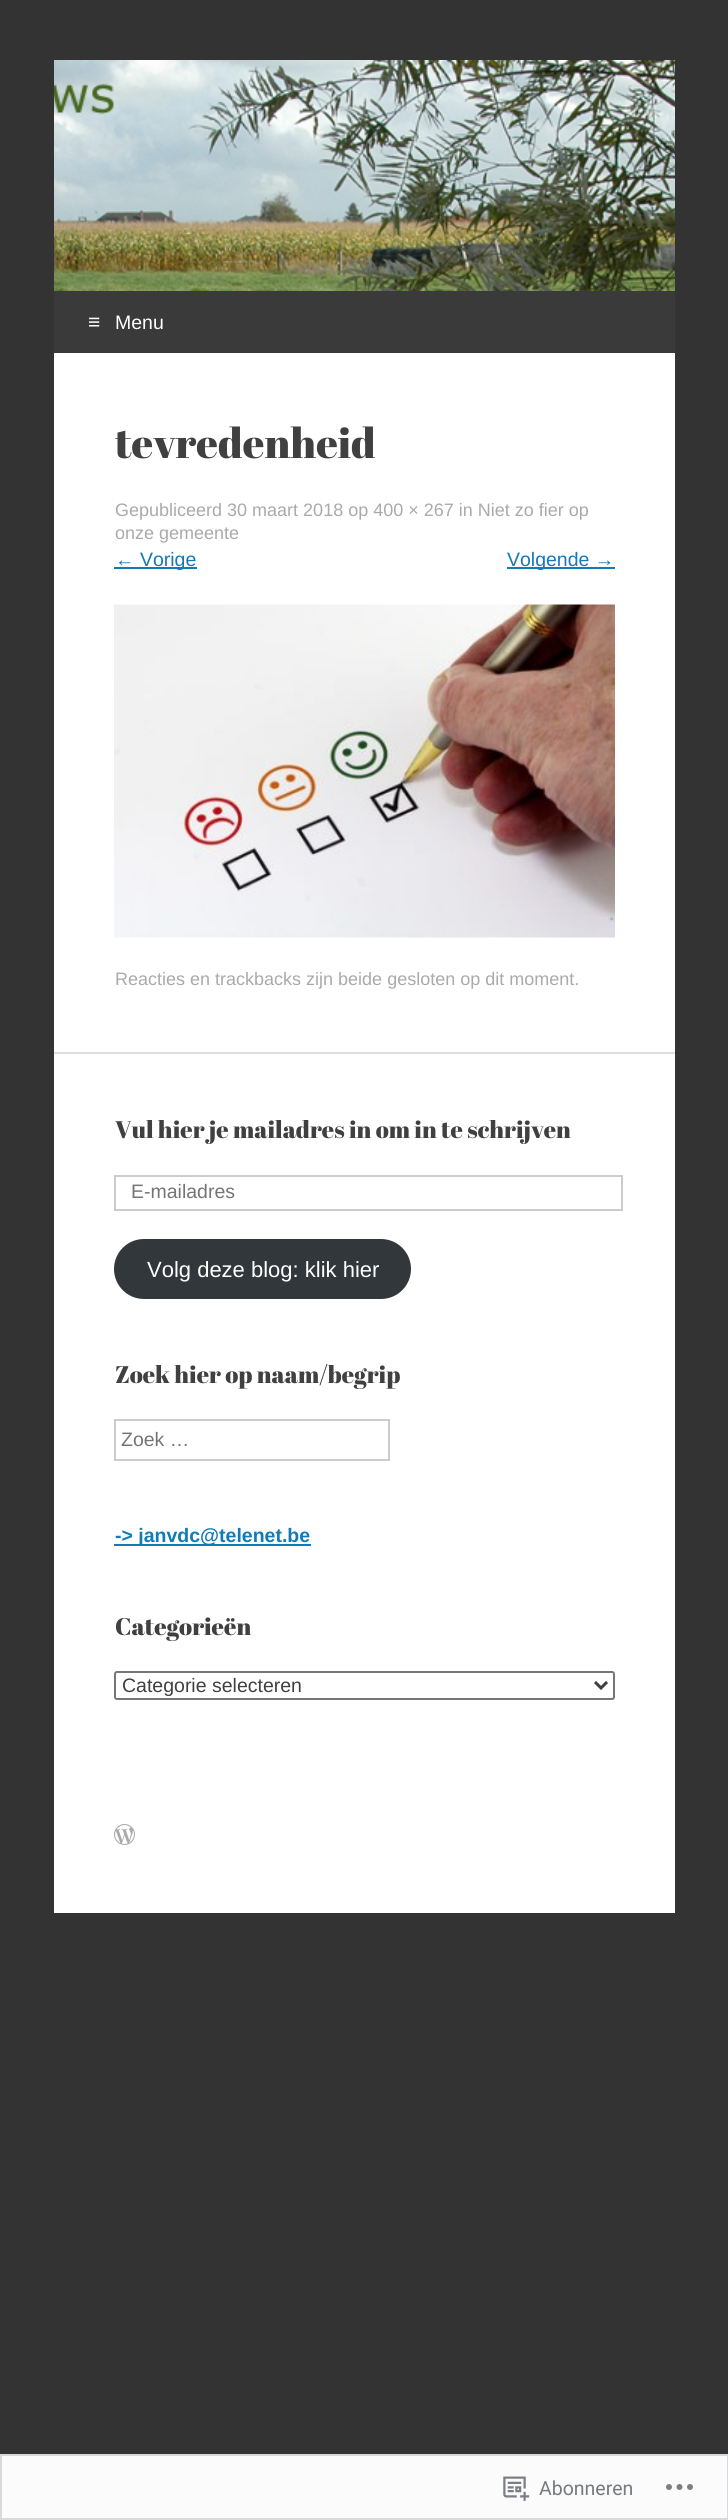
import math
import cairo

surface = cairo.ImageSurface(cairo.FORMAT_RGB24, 728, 2520)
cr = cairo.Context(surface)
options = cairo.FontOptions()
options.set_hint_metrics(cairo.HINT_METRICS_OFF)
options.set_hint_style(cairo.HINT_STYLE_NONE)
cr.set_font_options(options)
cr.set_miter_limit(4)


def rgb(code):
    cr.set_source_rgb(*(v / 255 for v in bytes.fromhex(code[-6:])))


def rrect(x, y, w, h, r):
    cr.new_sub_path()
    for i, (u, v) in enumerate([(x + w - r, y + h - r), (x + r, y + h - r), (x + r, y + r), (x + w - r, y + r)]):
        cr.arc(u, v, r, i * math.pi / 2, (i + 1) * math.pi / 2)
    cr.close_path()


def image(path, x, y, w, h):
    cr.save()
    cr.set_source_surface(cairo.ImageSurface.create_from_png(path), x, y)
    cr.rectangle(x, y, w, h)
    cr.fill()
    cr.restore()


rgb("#333333")
cr.paint()
rgb("#ffffff")
cr.rectangle(54, 353, 621, 1560)
cr.fill()
image("img/1.png", 54, 60, 621, 231)
for x, y, w, h, color in [
    (54, 291, 621, 62, "#3a3a3a"),
    (54, 1052, 621, 2, "#dddddd"),
    (114, 567, 83, 2, "#117bb8"),
    (507, 567, 108, 2, "#117bb8"),
]:
    rgb(color)
    cr.rectangle(x, y, w, h)
    cr.fill()
image("img/2.png", 114, 604, 501, 334)
cr.rectangle(115, 1176, 507, 34)
rgb("#cccccc")
cr.stroke()
rgb("#32373c")
rrect(114, 1239, 297, 60, 30)
cr.fill()
cr.rectangle(115, 1420, 274, 40)
rgb("#cccccc")
cr.stroke()
rgb("#117bb8")
cr.rectangle(114, 1544, 197, 2)
cr.fill()
rrect(115, 1672, 499, 27, 2)
rgb("#767676")
cr.stroke()
cr.new_path()
cr.move_to(595, 1682)
cr.line_to(601, 1688)
cr.line_to(607, 1682)
rgb("#404040")
cr.set_line_width(3)
cr.stroke()
image("img/3.png", 114, 1824, 21, 21)
rgb("#fbfbfb")
cr.rectangle(1, 2455, 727, 64)
cr.fill_preserve()
rgb("#d9d9db")
cr.set_line_width(2)
cr.stroke()
image("img/4.png", 503, 2476, 27, 25)
image("img/5.png", 666, 2484, 27, 6)
cr.select_font_face("Liberation Sans")
cr.set_font_size(21)
rgb("#ffffff")
cr.move_to(88, 329)
cr.show_text("≡")
cr.set_font_size(19.5)
cr.move_to(115, 329)
cr.show_text("Menu")
cr.select_font_face("Abril Fatface")
cr.set_font_size(42)
rgb("#404040")
cr.move_to(115, 458)
cr.show_text("tevredenheid")
cr.select_font_face("Liberation Sans")
cr.set_font_size(18)
rgb("#aaaaaa")
cr.move_to(115, 516)
cr.show_text("Gepubliceerd 30 maart 2018 op 400 × 267 in Niet zo fier op")
cr.move_to(115, 539)
cr.show_text("onze gemeente")
cr.set_font_size(19.5)
rgb("#117bb8")
cr.move_to(115, 566)
cr.show_text("← Vorige")
cr.move_to(507, 566)
cr.show_text("Volgende →")
cr.set_font_size(18)
rgb("#aaaaaa")
cr.move_to(115, 985)
cr.show_text("Reacties en trackbacks zijn beide gesloten op dit moment.")
cr.select_font_face("Abril Fatface")
cr.set_font_size(24)
rgb("#404040")
cr.move_to(115, 1138)
cr.show_text("Vul hier je mailadres in om in te schrijven")
cr.select_font_face("Liberation Sans")
cr.set_font_size(19.5)
rgb("#757575")
cr.move_to(131, 1198)
cr.show_text("E-mailadres")
cr.set_font_size(22)
rgb("#ffffff")
cr.move_to(147, 1277)
cr.show_text("Volg deze blog: klik hier")
cr.select_font_face("Abril Fatface")
cr.set_font_size(24)
rgb("#404040")
cr.move_to(115, 1383)
cr.show_text("Zoek hier op naam/begrip")
cr.select_font_face("Liberation Sans")
cr.set_font_size(19.5)
rgb("#757575")
cr.move_to(121, 1446)
cr.show_text("Zoek …")
cr.select_font_face("Liberation Sans", cairo.FONT_SLANT_NORMAL, cairo.FONT_WEIGHT_BOLD)
rgb("#117bb8")
cr.move_to(115, 1542)
cr.show_text("-> janvdc@telenet.be")
cr.select_font_face("Abril Fatface")
cr.set_font_size(24)
rgb("#404040")
cr.move_to(115, 1635)
cr.show_text("Categorieën")
cr.select_font_face("Liberation Sans")
cr.set_font_size(19.5)
cr.move_to(122, 1692)
cr.show_text("Categorie selecteren")
cr.select_font_face("Roboto")
rgb("#777b80")
cr.move_to(539, 2495)
cr.show_text("Abonneren")
surface.write_to_png("page.png")
